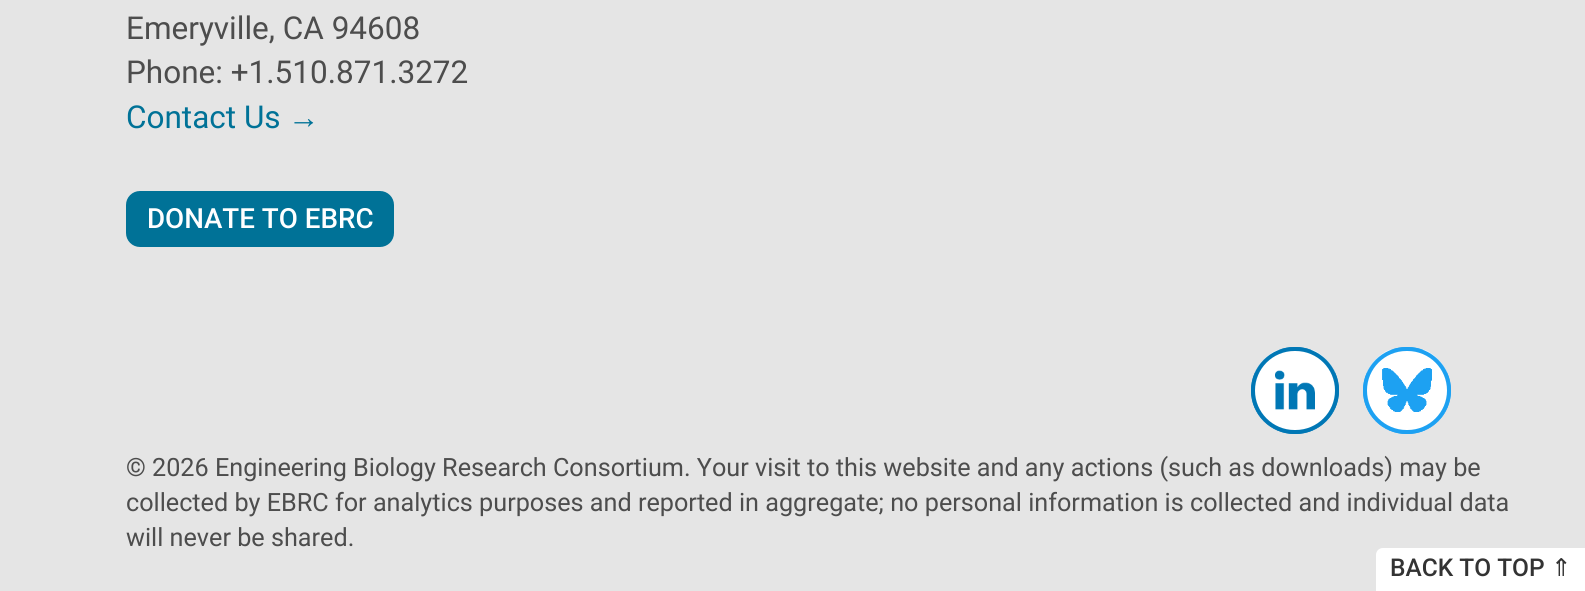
import math
import cairo

surface = cairo.ImageSurface(cairo.FORMAT_RGB24, 1585, 591)
cr = cairo.Context(surface)
options = cairo.FontOptions()
options.set_hint_metrics(cairo.HINT_METRICS_OFF)
options.set_hint_style(cairo.HINT_STYLE_NONE)
cr.set_font_options(options)
cr.set_miter_limit(4)


def rgb(code):
    cr.set_source_rgb(*(v / 255 for v in bytes.fromhex(code[-6:])))


def rrect(x, y, w, h, r):
    cr.new_sub_path()
    for i, (u, v) in enumerate([(x + w - r, y + h - r), (x + r, y + h - r), (x + r, y + r), (x + w - r, y + r)]):
        cr.arc(u, v, r, i * math.pi / 2, (i + 1) * math.pi / 2)
    cr.close_path()


def image(path, x, y, w, h):
    cr.save()
    cr.set_source_surface(cairo.ImageSurface.create_from_png(path), x, y)
    cr.rectangle(x, y, w, h)
    cr.fill()
    cr.restore()


rgb("#e5e5e5")
cr.paint()
rgb("#007297")
rrect(126, 191, 268, 56, 14)
cr.fill()
rgb("#0077b5")
rrect(1251, 347, 88, 87, 43.5)
cr.fill()
image("img/1.png", 1254, 349, 82, 82)
rrect(1253, 349, 84, 83, 41.5)
cr.set_line_width(4)
cr.stroke()
rgb("#1da1f2")
rrect(1363, 347, 88, 87, 43.5)
cr.fill()
image("img/2.png", 1366, 349, 82, 82)
rrect(1365, 349, 84, 83, 41.5)
cr.stroke()
rgb("#ffffff")
cr.new_path()
cr.move_to(1383, 548)
cr.line_to(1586, 548)
cr.line_to(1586, 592)
cr.line_to(1376, 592)
cr.line_to(1376, 555)
cr.curve_to(1376, 551, 1379, 548, 1383, 548)
cr.close_path()
cr.fill()
cr.select_font_face("Roboto")
cr.set_font_size(31.5)
rgb("#4d4d4d")
cr.move_to(126, 39)
cr.show_text("Emeryville, CA 94608")
cr.move_to(126, 83)
cr.show_text("Phone: +1.510.871.3272")
rgb("#007297")
cr.move_to(126, 128)
cr.show_text("Contact Us")
cr.select_font_face("Liberation Sans")
cr.move_to(288, 128)
cr.show_text("→")
cr.select_font_face("Roboto Medium")
cr.set_font_size(27.75)
rgb("#ffffff")
cr.move_to(147, 228)
cr.show_text("DONATE TO EBRC")
cr.select_font_face("Roboto")
cr.set_font_size(25.2)
rgb("#4d4d4d")
for x, y, s in [
    (126, 476, "© 2026 Engineering Biology Research Consortium. Your visit to this website and any actions (such as downloads) may be"),
    (126, 511, "collected by EBRC for analytics purposes and reported in aggregate; no personal information is collected and individual data"),
    (126, 546, "will never be shared."),
]:
    cr.move_to(x, y)
    cr.show_text(s)
cr.select_font_face("Roboto Medium")
cr.set_font_size(24.5)
rgb("#333333")
cr.move_to(1390, 576)
cr.show_text("BACK TO TOP")
cr.select_font_face("DejaVu Sans")
cr.move_to(1551, 576)
cr.show_text("⇑")
surface.write_to_png("page.png")
